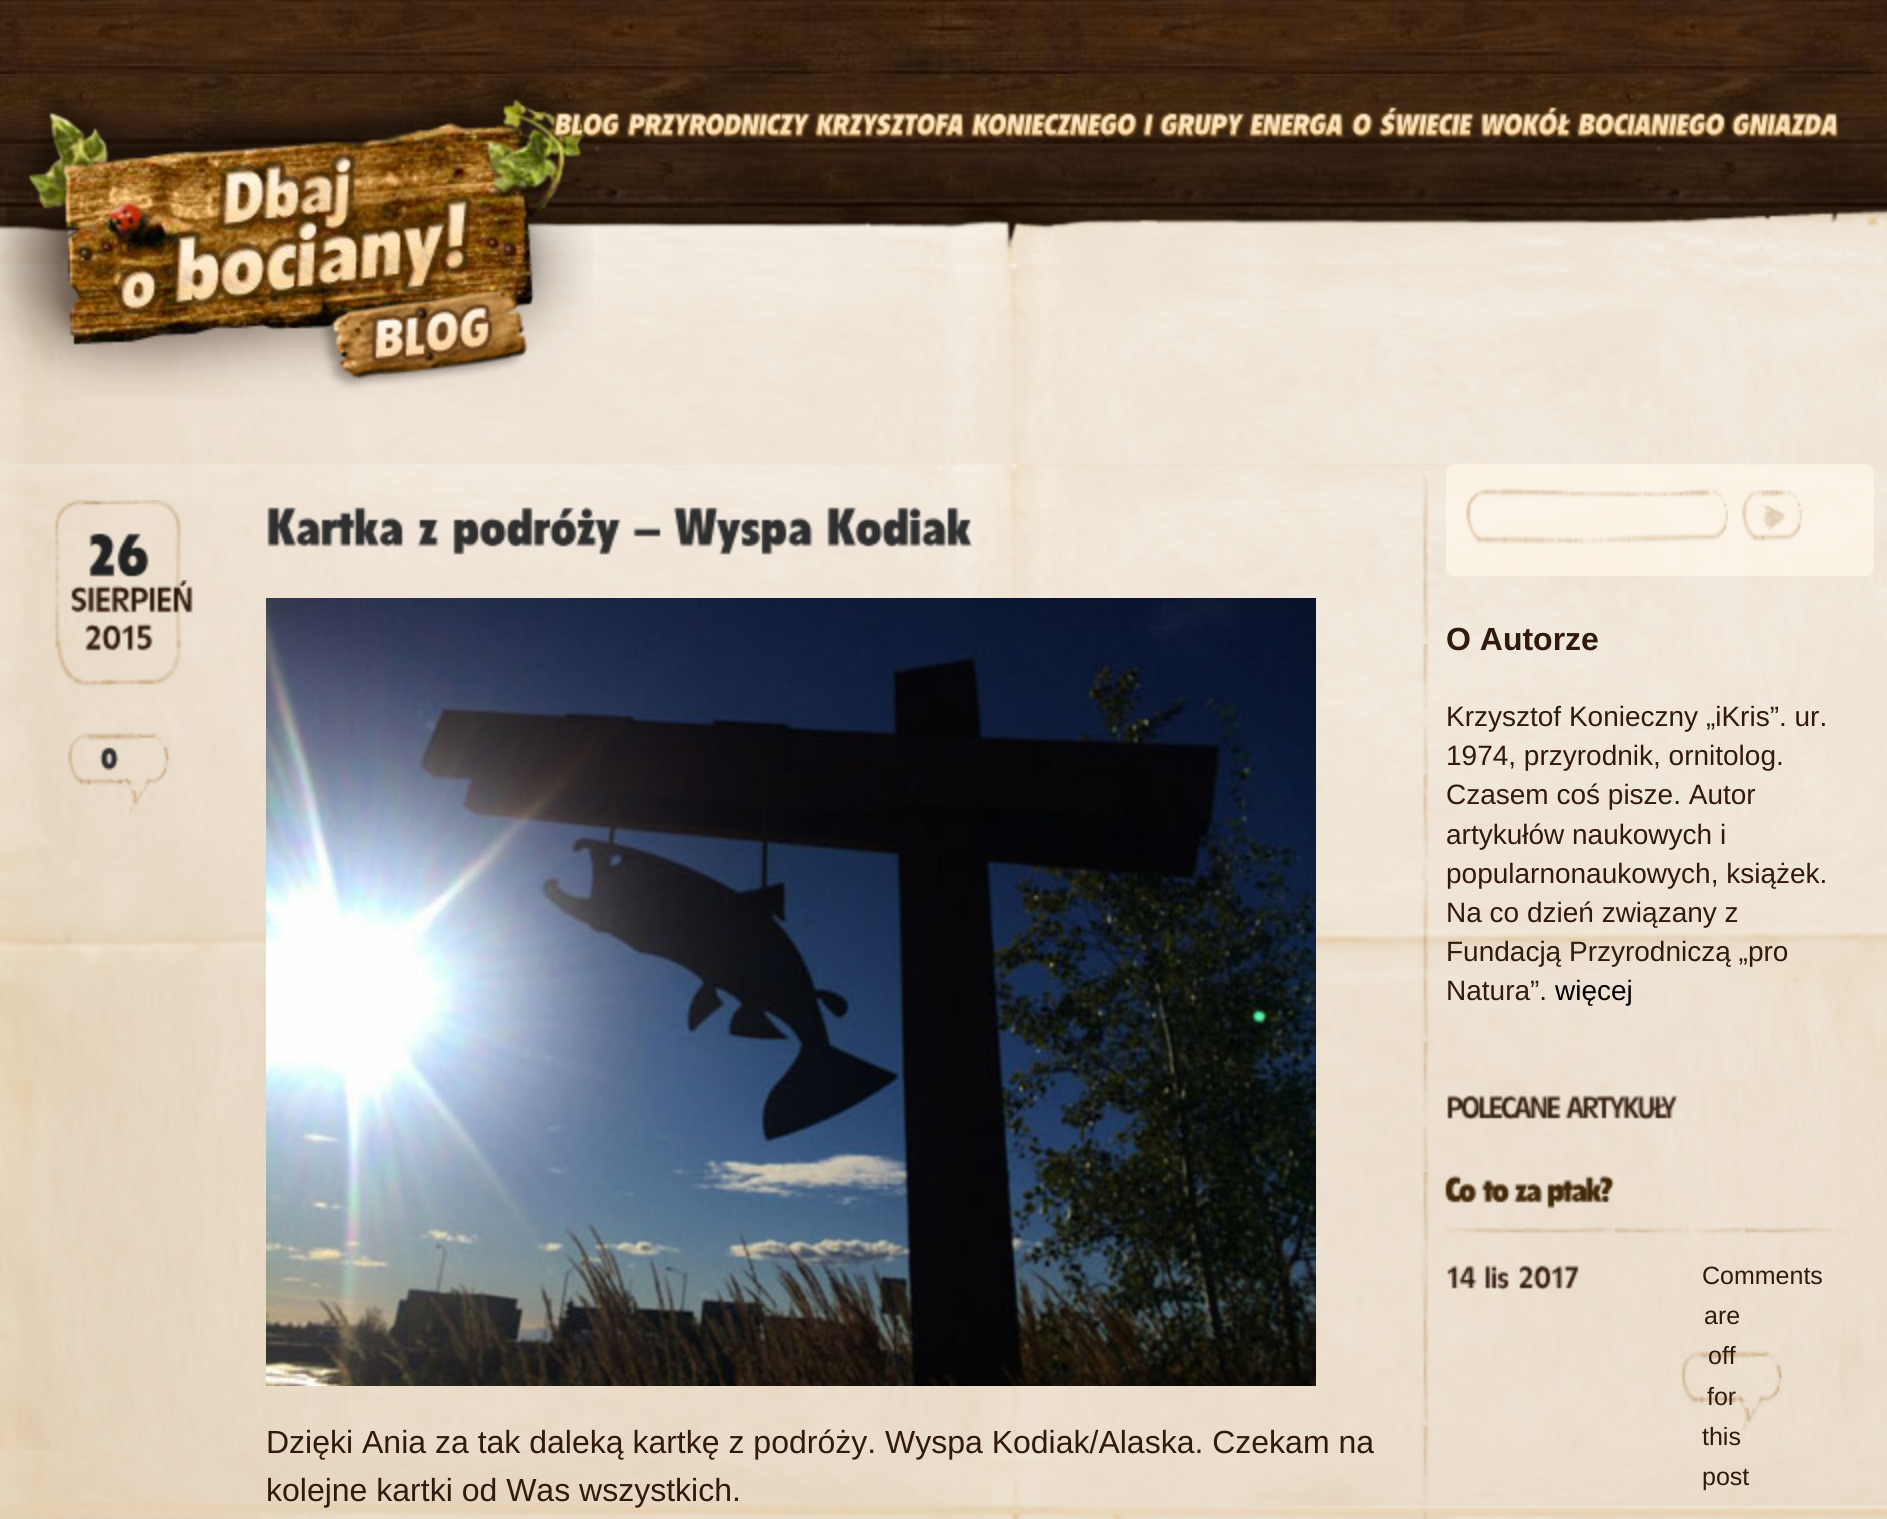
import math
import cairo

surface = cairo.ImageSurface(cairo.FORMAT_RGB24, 1887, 1519)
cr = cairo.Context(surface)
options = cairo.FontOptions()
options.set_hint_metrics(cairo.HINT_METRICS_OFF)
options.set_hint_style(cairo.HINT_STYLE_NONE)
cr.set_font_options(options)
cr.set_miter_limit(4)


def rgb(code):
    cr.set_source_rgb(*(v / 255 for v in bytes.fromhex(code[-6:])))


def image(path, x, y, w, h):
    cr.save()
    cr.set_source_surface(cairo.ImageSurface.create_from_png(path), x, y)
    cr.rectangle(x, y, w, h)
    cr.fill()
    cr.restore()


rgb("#ffffff")
cr.paint()
image("img/1.png", 0, 0, 1887, 264)
image("img/15.png", 0, 264, 1887, 200)
image("img/2.png", 0, 75, 593, 324)
image("img/3.png", 551, 111, 70, 28)
image("img/4.png", 625, 111, 187, 28)
image("img/5.png", 813, 111, 152, 28)
image("img/6.png", 969, 111, 170, 28)
image("img/7.png", 1141, 111, 15, 28)
image("img/8.png", 1158, 111, 88, 28)
image("img/9.png", 1247, 111, 98, 28)
image("img/10.png", 1350, 111, 24, 28)
image("img/11.png", 1377, 105, 99, 34)
image("img/12.png", 1479, 105, 94, 34)
image("img/13.png", 1575, 111, 152, 28)
image("img/14.png", 1730, 111, 110, 28)
image("img/16.png", 0, 464, 1887, 1055)
image("img/17.png", 54, 500, 128, 187)
image("img/18.png", 89, 533, 60, 44)
image("img/19.png", 71, 580, 122, 33)
image("img/20.png", 85, 623, 68, 28)
image("img/21.png", 68, 732, 102, 81)
image("img/22.png", 99, 747, 20, 24)
image("img/23.png", 267, 507, 137, 40)
image("img/24.png", 417, 519, 22, 28)
image("img/25.png", 453, 507, 168, 48)
image("img/26.png", 633, 527, 28, 10)
image("img/27.png", 673, 507, 140, 48)
image("img/28.png", 827, 507, 146, 40)
image("img/29.png", 266, 598, 1050, 788)
image("img/30.png", 1421, 473, 8, 1046)
image("img/31.png", 1446, 464, 428, 112)
image("img/32.png", 1466, 488, 262, 57)
image("img/33.png", 1742, 488, 60, 54)
cr.set_source_rgba(1, 1, 1, 0.25)
cr.rectangle(1742, 488, 60, 2)
cr.fill()
image("img/34.png", 1447, 1095, 114, 26)
image("img/35.png", 1565, 1095, 113, 26)
image("img/36.png", 1446, 1227, 406, 8)
image("img/37.png", 1444, 1175, 33, 28)
image("img/38.png", 1481, 1179, 30, 24)
image("img/39.png", 1513, 1183, 30, 20)
image("img/40.png", 1547, 1175, 68, 34)
image("img/41.png", 1447, 1265, 30, 24)
image("img/42.png", 1484, 1265, 26, 26)
image("img/43.png", 1519, 1265, 60, 26)
image("img/44.png", 1682, 1350, 100, 81)
cr.select_font_face("Liberation Sans")
cr.set_font_size(32)
rgb("#31190d")
cr.move_to(266, 1453)
cr.show_text("Dzięki Ania za tak daleką kartkę z podróży. Wyspa Kodiak/Alaska. Czekam na")
cr.move_to(266, 1501)
cr.show_text("kolejne kartki od Was wszystkich.")
cr.select_font_face("Liberation Sans", cairo.FONT_SLANT_NORMAL, cairo.FONT_WEIGHT_BOLD)
cr.move_to(1446, 650)
cr.show_text("O Autorze")
cr.select_font_face("Liberation Sans")
cr.set_font_size(28)
for x, y, s in [
    (1446, 726, "Krzysztof Konieczny „iKris”. ur."),
    (1446, 765, "1974, przyrodnik, ornitolog."),
    (1446, 804, "Czasem coś pisze. Autor"),
    (1446, 844, "artykułów naukowych i"),
    (1446, 883, "popularnonaukowych, książek."),
    (1446, 922, "Na co dzień związany z"),
    (1446, 961, "Fundacją Przyrodniczą „pro"),
    (1446, 1000, "Natura”."),
]:
    cr.move_to(x, y)
    cr.show_text(s)
rgb("#000000")
cr.move_to(1555, 1000)
cr.show_text("więcej")
cr.set_font_size(25)
rgb("#31190d")
for x, y, s in [
    (1702, 1284, "Comments"),
    (1704, 1324, "are"),
    (1708, 1364, "off"),
    (1707, 1405, "for"),
    (1702, 1445, "this"),
    (1702, 1485, "post"),
]:
    cr.move_to(x, y)
    cr.show_text(s)
surface.write_to_png("page.png")
